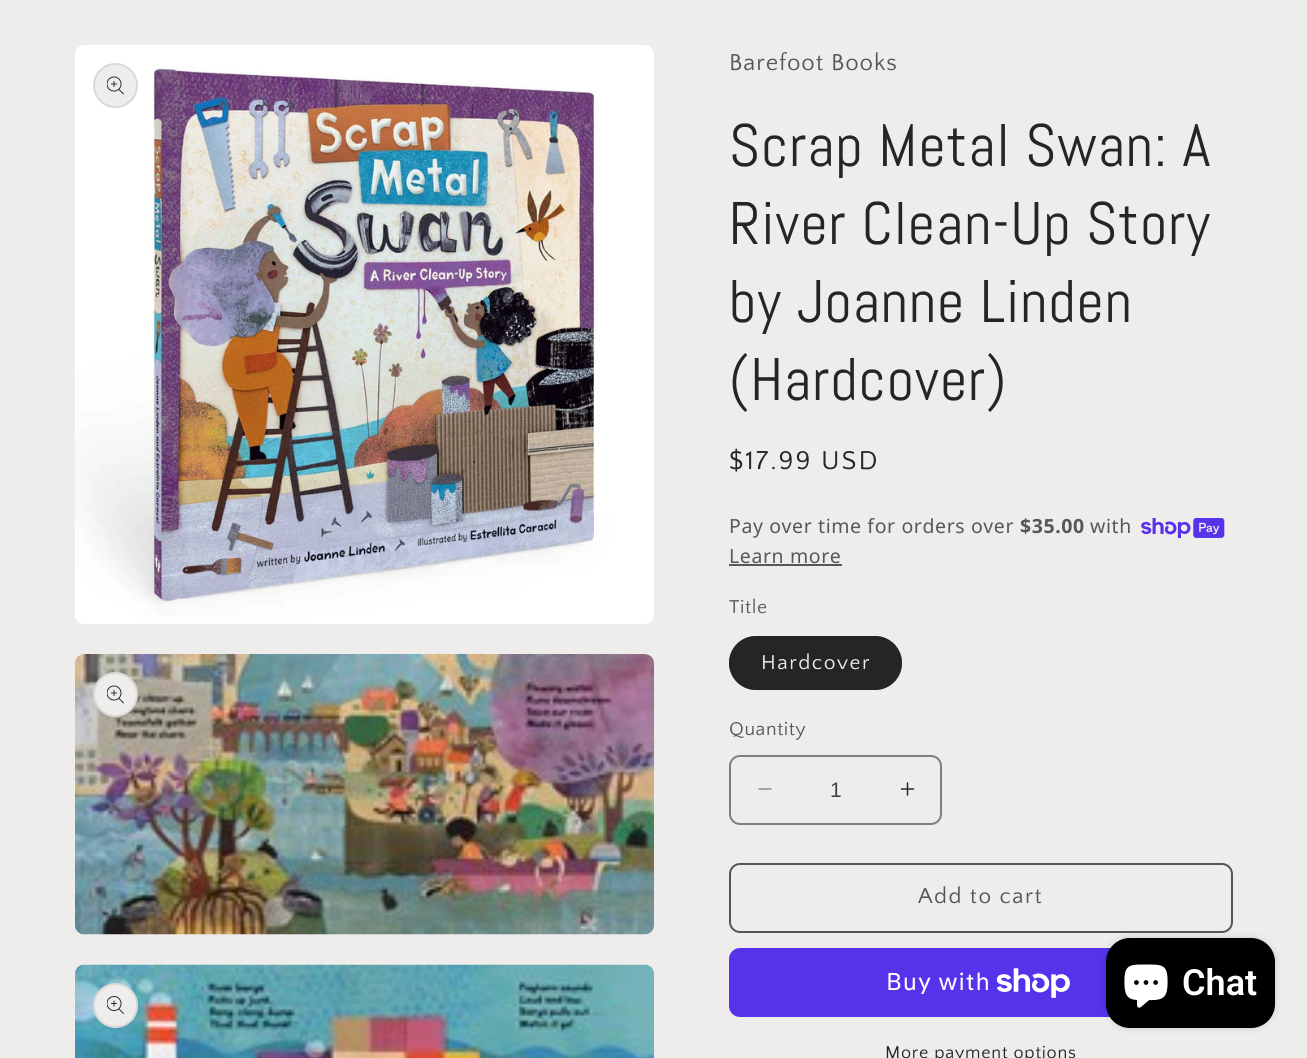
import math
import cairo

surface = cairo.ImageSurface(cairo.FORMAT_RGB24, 1307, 1058)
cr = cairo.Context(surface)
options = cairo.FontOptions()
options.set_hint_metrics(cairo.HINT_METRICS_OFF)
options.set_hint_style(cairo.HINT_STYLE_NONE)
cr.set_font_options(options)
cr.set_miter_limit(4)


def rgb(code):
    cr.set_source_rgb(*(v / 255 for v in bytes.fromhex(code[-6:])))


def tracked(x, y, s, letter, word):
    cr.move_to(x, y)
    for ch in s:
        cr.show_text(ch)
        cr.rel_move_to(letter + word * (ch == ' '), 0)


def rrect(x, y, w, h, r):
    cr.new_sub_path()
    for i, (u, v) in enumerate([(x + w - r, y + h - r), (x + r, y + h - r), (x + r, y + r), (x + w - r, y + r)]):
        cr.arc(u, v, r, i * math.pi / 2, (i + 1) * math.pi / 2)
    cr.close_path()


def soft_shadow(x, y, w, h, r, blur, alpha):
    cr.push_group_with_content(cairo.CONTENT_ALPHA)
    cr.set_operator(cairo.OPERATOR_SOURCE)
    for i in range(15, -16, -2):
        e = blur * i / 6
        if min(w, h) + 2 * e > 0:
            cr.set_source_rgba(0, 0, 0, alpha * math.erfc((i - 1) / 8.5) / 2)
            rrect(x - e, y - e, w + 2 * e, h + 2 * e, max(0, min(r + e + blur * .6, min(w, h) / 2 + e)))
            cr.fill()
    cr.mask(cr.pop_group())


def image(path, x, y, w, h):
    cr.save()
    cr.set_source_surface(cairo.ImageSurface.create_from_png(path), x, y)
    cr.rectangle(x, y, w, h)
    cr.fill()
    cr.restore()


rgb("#efecec")
cr.paint()
image("img/1.png", 75, 45, 579, 579)
rgb("#efecec")
cr.arc(115.5, 85.5, 22.5, 0, 2 * math.pi)
cr.fill()
cr.arc(115.5, 85.5, 21.5, 0, 2 * math.pi)
cr.set_source_rgba(0.145, 0.145, 0.145, 0.1)
cr.stroke()
image("img/2.png", 107, 76, 17, 19)
image("img/3.png", 75, 654, 579, 281)
rgb("#efecec")
cr.arc(115.5, 694.5, 22.5, 0, 2 * math.pi)
cr.fill()
cr.arc(115.5, 694.5, 21.5, 0, 2 * math.pi)
cr.set_source_rgba(0.145, 0.145, 0.145, 0.1)
cr.stroke()
image("img/2.png", 107, 685, 17, 19)
image("img/4.png", 75, 964, 579, 94)
rgb("#efecec")
cr.arc(115.5, 1005.5, 22.5, 0, 2 * math.pi)
cr.fill()
cr.arc(115.5, 1005.5, 21.5, 0, 2 * math.pi)
cr.set_source_rgba(0.145, 0.145, 0.145, 0.1)
cr.stroke()
image("img/5.png", 107, 996, 17, 18)
image("img/6.png", 1141, 518, 84, 21)
rgb("#585757")
cr.rectangle(729, 564, 113, 2)
cr.fill()
rgb("#252525")
rrect(729, 636, 173, 54, 27)
cr.fill()
rrect(730, 637, 171, 52, 26)
cr.set_source_rgba(0.145, 0.145, 0.145, 0.55)
cr.stroke()
image("img/7.png", 758, 788, 14, 2)
image("img/8.png", 900, 782, 15, 14)
rrect(730, 756, 211, 68, 10)
rgb("#807f7f")
cr.stroke()
rrect(730, 864, 502, 68, 10)
rgb("#505655")
cr.stroke()
rgb("#5433eb")
rrect(729, 948, 504, 69, 11)
cr.fill()
image("img/9.png", 996, 968, 74, 30)
rgb("#000000")
soft_shadow(1106, 938, 169, 90, 24, 4, 0.15)
rgb("#000000")
rrect(1106, 938, 169, 90, 24)
cr.fill()
image("img/10.png", 1124, 964, 44, 44)
cr.select_font_face("Quattrocento Sans")
cr.set_font_size(24)
rgb("#585757")
tracked(729, 70, "Barefoot Books", 0.9, 0)
cr.select_font_face("Abel")
cr.set_font_size(60)
rgb("#252525")
for x, y, s in [
    (729, 166, "Scrap Metal Swan: A"),
    (729, 244, "River Clean-Up Story"),
    (729, 322, "by Joanne Linden"),
    (729, 400, "(Hardcover)"),
]:
    tracked(x, y, s, 0.9, 0)
cr.select_font_face("Quattrocento Sans")
cr.set_font_size(27)
tracked(729, 469, "$17.99 USD", 2, 0)
cr.select_font_face("Noto Sans")
cr.set_font_size(19.5)
rgb("#585757")
tracked(729, 533, "Pay over time for orders over", 0.6, 0)
cr.select_font_face("Noto Sans", cairo.FONT_SLANT_NORMAL, cairo.FONT_WEIGHT_BOLD)
tracked(1020, 533, "$35.00", 0.6, 0)
cr.select_font_face("Noto Sans")
tracked(1090, 533, "with", 0.6, 0)
tracked(729, 563, "Learn more", 0.6, 0)
cr.select_font_face("Quattrocento Sans")
tracked(729, 613, "Title", 0.6, 0)
cr.set_font_size(21)
rgb("#efecec")
tracked(761, 669, "Hardcover", 1.5, 0)
cr.set_font_size(19.5)
rgb("#585757")
tracked(729, 735, "Quantity", 0.6, 0)
cr.select_font_face("Liberation Sans")
cr.set_font_size(21)
rgb("#434343")
cr.move_to(830, 797)
cr.show_text("1")
cr.select_font_face("Quattrocento Sans")
cr.set_font_size(22.5)
rgb("#505655")
tracked(918, 903, "Add to cart", 1.5, 0)
cr.select_font_face("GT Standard")
cr.set_font_size(24)
rgb("#ffffff")
tracked(886, 990, "Buy with", 0.9, 0)
cr.select_font_face("Quattrocento Sans")
cr.set_font_size(18)
rgb("#252525")
tracked(885, 1058, "More payment options", 0.75, 0)
cr.select_font_face("Roboto SemiBold")
cr.set_font_size(36)
rgb("#ffffff")
cr.move_to(1182, 995)
cr.show_text("Chat")
surface.write_to_png("page.png")
